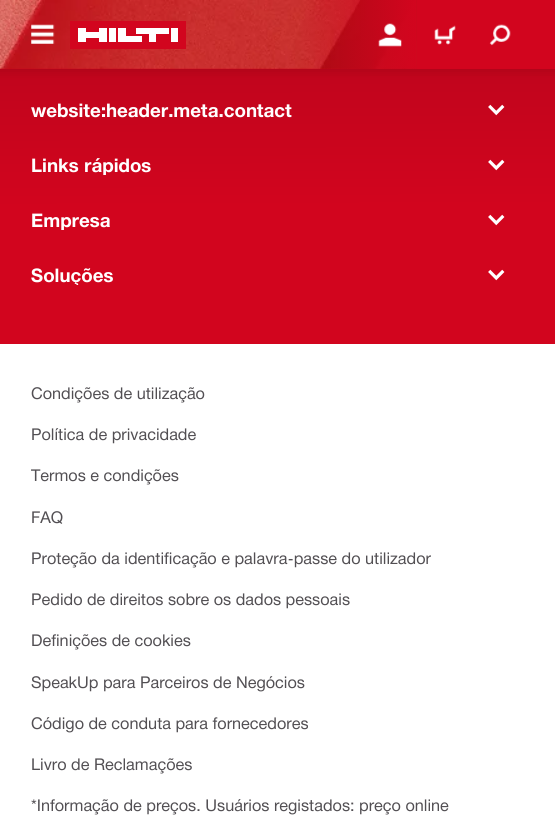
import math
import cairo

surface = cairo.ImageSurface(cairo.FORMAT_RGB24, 555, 832)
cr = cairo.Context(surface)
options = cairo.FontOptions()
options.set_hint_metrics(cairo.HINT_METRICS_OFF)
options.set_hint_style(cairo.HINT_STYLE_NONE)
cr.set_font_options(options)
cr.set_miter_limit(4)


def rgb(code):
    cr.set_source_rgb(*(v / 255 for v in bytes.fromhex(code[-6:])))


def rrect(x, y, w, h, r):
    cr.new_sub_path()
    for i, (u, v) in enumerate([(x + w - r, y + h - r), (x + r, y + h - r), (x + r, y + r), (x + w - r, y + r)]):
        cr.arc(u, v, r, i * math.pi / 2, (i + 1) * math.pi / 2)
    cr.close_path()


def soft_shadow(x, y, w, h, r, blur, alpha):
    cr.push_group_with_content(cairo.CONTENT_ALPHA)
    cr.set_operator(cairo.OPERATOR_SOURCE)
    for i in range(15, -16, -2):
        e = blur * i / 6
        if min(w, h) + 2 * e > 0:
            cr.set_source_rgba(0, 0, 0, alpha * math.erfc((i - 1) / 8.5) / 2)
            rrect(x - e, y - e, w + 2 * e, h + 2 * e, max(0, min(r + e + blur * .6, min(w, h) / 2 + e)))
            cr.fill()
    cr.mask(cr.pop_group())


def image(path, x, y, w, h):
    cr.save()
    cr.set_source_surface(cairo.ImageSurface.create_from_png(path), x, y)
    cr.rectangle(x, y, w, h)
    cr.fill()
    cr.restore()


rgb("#ffffff")
cr.paint()
gradient = cairo.LinearGradient(277, 41, 278, 344)
gradient.add_color_stop_rgba(0, 0.741, 0.02, 0.11, 1)
gradient.add_color_stop_rgba(0.55, 0.824, 0.02, 0.118, 1)
cr.set_source(gradient)
cr.rectangle(0, 69, 555, 275)
cr.fill()
rgb("#000000")
soft_shadow(-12, -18, 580, 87, 0, 6, 0.15)
rgb("#d2051e")
cr.rectangle(0, 0, 555, 69)
cr.fill()
image("img/1.png", 0, 0, 417, 69)
image("img/2.png", 31, 24, 24, 20)
cr.rectangle(70, 21, 116, 28)
cr.fill()
rgb("#ffffff")
cr.new_path()
cr.move_to(116, 42)
cr.line_to(109, 42)
cr.line_to(109, 28)
cr.line_to(116, 28)
cr.close_path()
cr.move_to(178, 28)
cr.line_to(171, 28)
cr.line_to(171, 42)
cr.line_to(178, 42)
cr.close_path()
cr.move_to(78, 42)
cr.line_to(86, 42)
cr.line_to(86, 38)
cr.line_to(99, 38)
cr.line_to(99, 42)
cr.line_to(107, 42)
cr.line_to(107, 28)
cr.line_to(99, 28)
cr.line_to(99, 32)
cr.line_to(86, 32)
cr.line_to(86, 28)
cr.line_to(78, 28)
cr.close_path()
cr.move_to(118, 42)
cr.line_to(142, 42)
cr.line_to(142, 36)
cr.line_to(126, 36)
cr.line_to(126, 28)
cr.line_to(118, 28)
cr.close_path()
cr.move_to(136, 34)
cr.line_to(149, 34)
cr.line_to(149, 42)
cr.line_to(156, 42)
cr.line_to(156, 34)
cr.line_to(169, 34)
cr.line_to(169, 28)
cr.line_to(136, 28)
cr.close_path()
cr.fill()
image("img/3.png", 378, 23, 24, 24)
image("img/4.png", 434, 25, 22, 20)
image("img/5.png", 489, 24, 22, 22)
image("img/6.png", 488, 104, 17, 12)
image("img/7.png", 488, 159, 17, 12)
image("img/8.png", 488, 214, 17, 12)
image("img/8.png", 488, 269, 17, 12)
cr.select_font_face("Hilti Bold", cairo.FONT_SLANT_NORMAL, cairo.FONT_WEIGHT_BOLD)
cr.set_font_size(18.75)
cr.move_to(31, 117)
cr.show_text("website:header.meta.contact")
cr.save()
cr.rectangle(31, 156, 133, 19)
cr.clip()
cr.move_to(31, 172)
cr.show_text("Links rápidos")
cr.restore()
cr.save()
cr.rectangle(31, 211, 93, 19)
cr.clip()
cr.move_to(31, 227)
cr.show_text("Empresa")
cr.restore()
cr.save()
cr.rectangle(31, 266, 95, 19)
cr.clip()
cr.move_to(31, 282)
cr.show_text("Soluções")
cr.restore()
cr.select_font_face("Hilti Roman")
cr.set_font_size(16.25)
rgb("#524f53")
for x, y, s in [
    (31, 399, "Condições de utilização"),
    (31, 440, "Política de privacidade"),
    (31, 481, "Termos e condições"),
    (31, 523, "FAQ"),
    (31, 564, "Proteção da identificação e palavra-passe do utilizador"),
    (31, 605, "Pedido de direitos sobre os dados pessoais"),
    (31, 646, "Definições de cookies"),
    (31, 688, "SpeakUp para Parceiros de Negócios"),
    (31, 729, "Código de conduta para fornecedores"),
    (31, 770, "Livro de Reclamações"),
    (31, 811, "*Informação de preços. Usuários registados: preço online"),
]:
    cr.move_to(x, y)
    cr.show_text(s)
surface.write_to_png("page.png")
